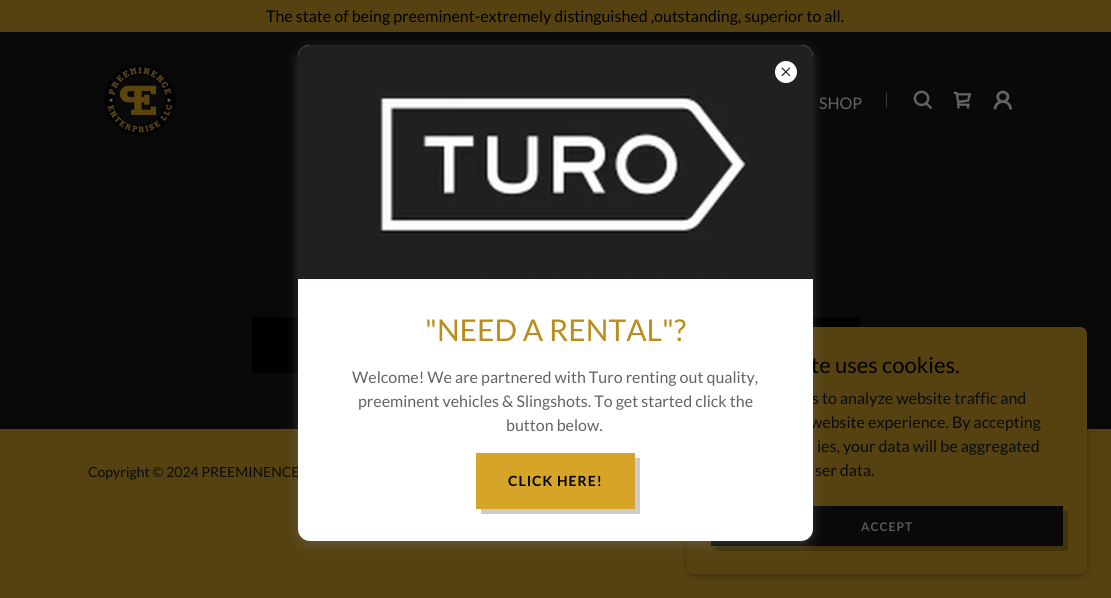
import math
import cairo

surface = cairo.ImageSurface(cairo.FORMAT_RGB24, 1111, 598)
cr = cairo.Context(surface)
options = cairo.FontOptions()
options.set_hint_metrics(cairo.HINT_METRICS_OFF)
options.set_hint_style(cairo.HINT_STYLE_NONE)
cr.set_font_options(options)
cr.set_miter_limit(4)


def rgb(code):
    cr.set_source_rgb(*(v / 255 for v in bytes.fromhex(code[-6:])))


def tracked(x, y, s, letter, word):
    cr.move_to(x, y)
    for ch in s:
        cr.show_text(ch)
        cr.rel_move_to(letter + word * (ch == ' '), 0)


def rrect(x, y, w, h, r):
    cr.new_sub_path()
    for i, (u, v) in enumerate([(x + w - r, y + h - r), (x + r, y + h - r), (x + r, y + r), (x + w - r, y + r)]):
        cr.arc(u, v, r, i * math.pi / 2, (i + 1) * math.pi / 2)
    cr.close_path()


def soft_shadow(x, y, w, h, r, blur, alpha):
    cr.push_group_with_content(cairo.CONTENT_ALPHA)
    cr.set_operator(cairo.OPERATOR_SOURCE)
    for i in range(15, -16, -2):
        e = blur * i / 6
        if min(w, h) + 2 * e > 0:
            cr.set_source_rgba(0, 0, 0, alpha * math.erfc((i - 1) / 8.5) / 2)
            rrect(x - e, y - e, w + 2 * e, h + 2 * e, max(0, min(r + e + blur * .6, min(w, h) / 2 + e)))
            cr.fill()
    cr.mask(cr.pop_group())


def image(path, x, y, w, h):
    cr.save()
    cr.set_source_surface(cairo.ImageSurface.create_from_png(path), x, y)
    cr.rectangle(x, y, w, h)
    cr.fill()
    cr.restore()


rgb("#564210")
cr.paint()
rgb("#090909")
cr.rectangle(0, 32, 1111, 397)
cr.fill()
image("img/1.png", 104, 64, 72, 72)
rgb("#373737")
cr.rectangle(886, 92, 1, 16)
cr.fill()
image("img/2.png", 913, 90, 20, 20)
image("img/3.png", 953, 91, 19, 18)
image("img/4.png", 993, 90, 19, 20)
rgb("#000000")
cr.rectangle(252, 317, 608, 56)
cr.fill()
rgb("#000000")
soft_shadow(687, 329, 400, 247, 7, 3, 0.3)
rgb("#564210")
rrect(687, 327, 400, 247, 7)
cr.fill()
rgb("#090909")
cr.rectangle(711, 506, 352, 40)
cr.fill()
rgb("#44340c")
cr.new_path()
cr.move_to(716, 546)
cr.line_to(716, 551)
cr.line_to(1068, 551)
cr.line_to(1068, 511)
cr.line_to(1063, 511)
cr.line_to(1063, 546)
cr.close_path()
cr.fill()
rgb("#757575")
soft_shadow(298, 49, 515, 496, 12, 6, 0.4)
cr.select_font_face("Lato")
cr.set_font_size(16)
rgb("#000000")
cr.move_to(266, 22)
cr.show_text("The state of being preeminent-extremely distinguished ,outstanding, superior to all.")
rgb("#636363")
cr.move_to(819, 109)
cr.show_text("SHOP")
cr.set_font_size(14)
rgb("#0a0a09")
cr.move_to(88, 477)
cr.show_text("Copyright © 2024 PREEMINENCE")
cr.set_font_size(22)
rgb("#000000")
cr.move_to(811, 373)
cr.show_text("te uses cookies.")
cr.set_font_size(16)
rgb("#0a0a09")
cr.move_to(812, 404)
cr.show_text("s to analyze website traffic and")
cr.move_to(810, 428)
cr.show_text("website experience. By accepting")
rgb("#ffffff")
rrect(298, 45, 515, 496, 12)
cr.fill()
rgb("#d6a427")
cr.rectangle(476, 453, 159, 56)
cr.fill()
rgb("#cccccc")
cr.new_path()
cr.move_to(481, 509)
cr.line_to(481, 514)
cr.line_to(640, 514)
cr.line_to(640, 458)
cr.line_to(635, 458)
cr.line_to(635, 509)
cr.close_path()
cr.fill()
cr.select_font_face("Lato", cairo.FONT_SLANT_NORMAL, cairo.FONT_WEIGHT_BOLD)
cr.set_font_size(14)
rgb("#000000")
tracked(508, 486, "CLICK HERE!", 1, 0)
image("img/6.png", 298, 45, 515, 234)
rgb("#ffffff")
cr.arc(786, 72, 11, 0, 2 * math.pi)
cr.fill()
image("img/5.png", 781, 67, 10, 10)
cr.select_font_face("Lato")
cr.set_font_size(16)
rgb("#636363")
for x, y, s in [
    (506, 431, "button below."),
    (358, 407, "preeminent vehicles & Slingshots. To get started click the"),
    (352, 383, "Welcome! We are partnered with Turo renting out quality,"),
]:
    cr.move_to(x, y)
    cr.show_text(s)
cr.set_font_size(30)
rgb("#ba8d1e")
cr.move_to(425, 341)
cr.show_text("\"NEED A RENTAL\"?")
cr.set_font_size(16)
rgb("#0a0a09")
cr.move_to(817, 452)
cr.show_text("ies, your data will be aggregated")
cr.move_to(815, 476)
cr.show_text("ser data.")
cr.select_font_face("Lato", cairo.FONT_SLANT_NORMAL, cairo.FONT_WEIGHT_BOLD)
cr.set_font_size(12)
rgb("#585858")
tracked(861, 531, "ACCEPT", 1, 0)
surface.write_to_png("page.png")
